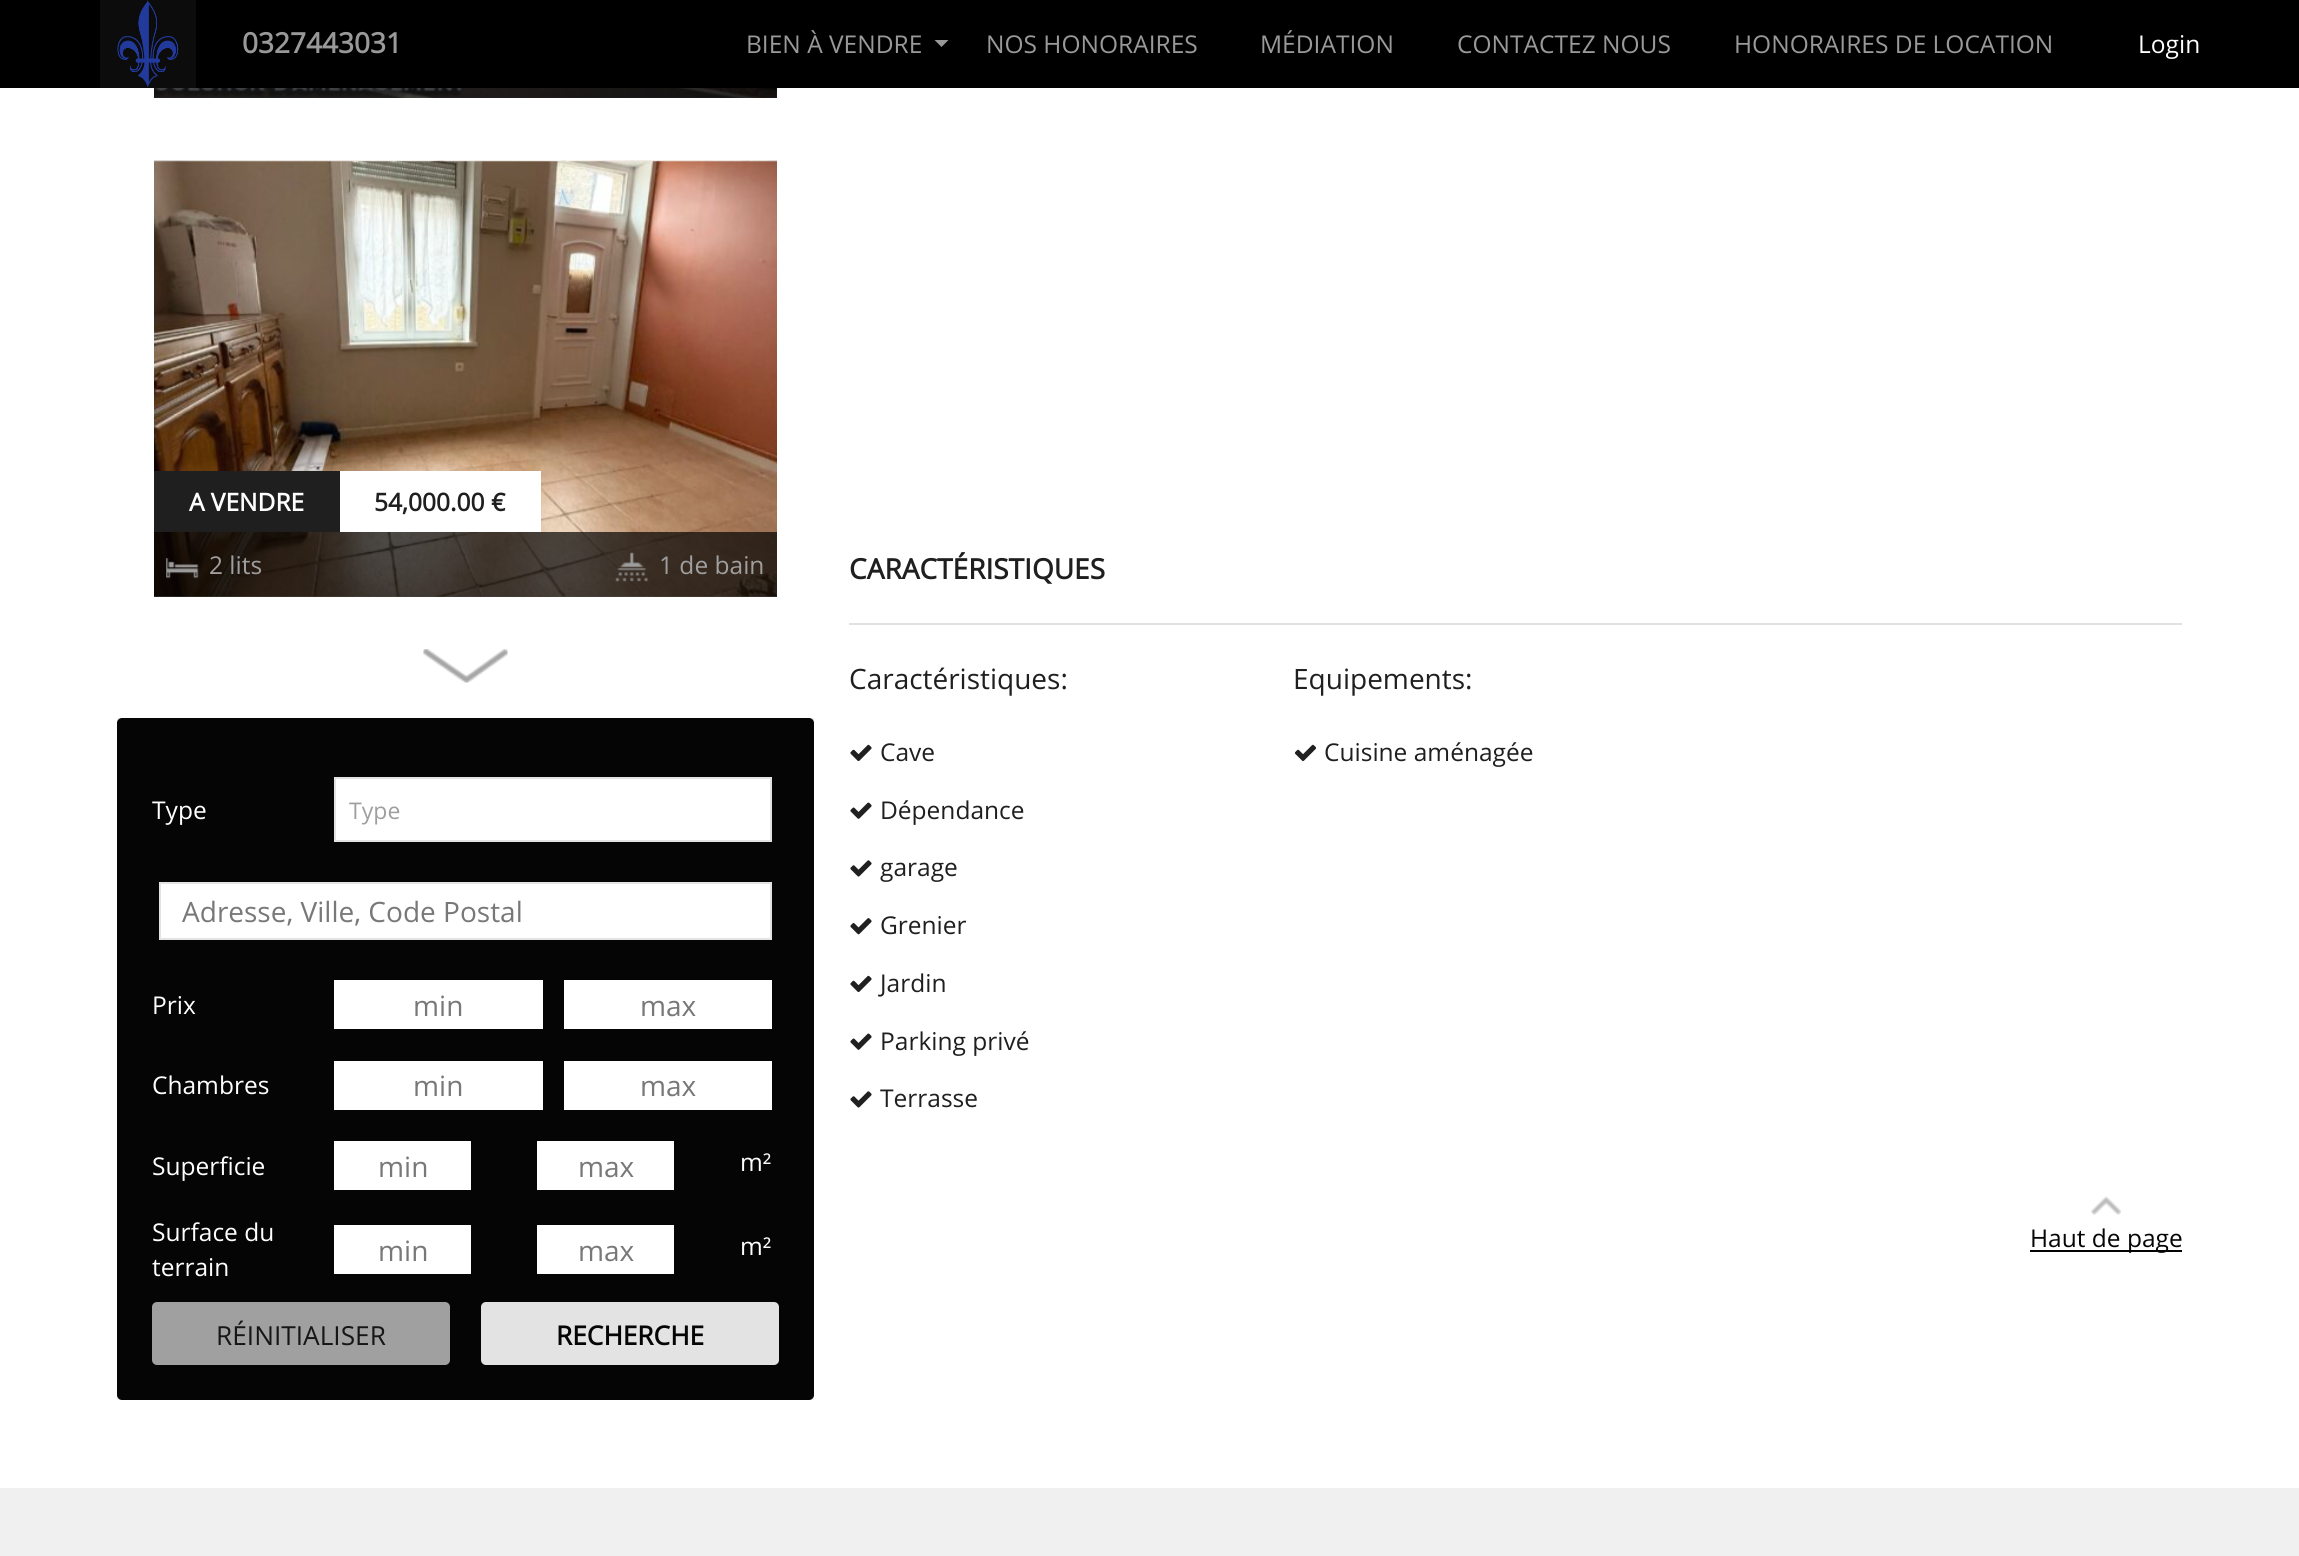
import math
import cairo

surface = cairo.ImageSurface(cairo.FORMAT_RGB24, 2299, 1556)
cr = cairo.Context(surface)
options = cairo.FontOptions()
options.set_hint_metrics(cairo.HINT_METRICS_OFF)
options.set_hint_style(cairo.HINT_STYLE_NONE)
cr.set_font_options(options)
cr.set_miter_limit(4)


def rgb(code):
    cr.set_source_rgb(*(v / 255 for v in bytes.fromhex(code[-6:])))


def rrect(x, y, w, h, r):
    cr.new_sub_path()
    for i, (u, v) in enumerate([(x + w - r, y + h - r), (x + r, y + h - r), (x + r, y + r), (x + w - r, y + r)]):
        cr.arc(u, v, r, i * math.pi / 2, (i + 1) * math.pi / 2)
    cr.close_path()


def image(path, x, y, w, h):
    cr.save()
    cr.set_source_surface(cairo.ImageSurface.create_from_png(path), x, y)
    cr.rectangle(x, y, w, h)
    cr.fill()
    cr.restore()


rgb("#ffffff")
cr.paint()
rgb("#000000")
cr.rectangle(0, 0, 2299, 88)
cr.fill()
rgb("#0c0c0c")
cr.rectangle(100, 0, 96, 88)
cr.fill()
image("img/1.png", 117, 0, 62, 87)
rgb("#999999")
cr.new_path()
cr.move_to(934.5, 40)
cr.line_to(948.5, 40)
cr.line_to(941.5, 47)
cr.close_path()
cr.fill()
image("img/2.png", 154, 88, 623, 10)
cr.set_source_rgba(0.012, 0.012, 0.012, 0.7)
cr.rectangle(154, 88, 623, 10)
cr.fill()
image("img/3.png", 154, 160, 623, 437)
cr.rectangle(154, 532, 623, 65)
cr.fill()
rgb("#1f1f1f")
cr.rectangle(154, 471, 186, 61)
cr.fill()
rgb("#ffffff")
cr.rectangle(340, 471, 201, 61)
cr.fill()
image("img/4.png", 166, 558, 33, 21)
image("img/5.png", 615, 552, 34, 30)
image("img/6.png", 423, 649, 85, 34)
rgb("#f0f0f0")
cr.rectangle(117, 718, 697, 682)
cr.fill()
rgb("#050505")
rrect(117, 718, 697, 682, 5)
cr.fill()
rgb("#ffffff")
cr.rectangle(335, 778, 436, 63)
cr.fill_preserve()
rgb("#e3e3e3")
cr.stroke()
rgb("#ffffff")
cr.rectangle(160, 883, 611, 56)
cr.fill_preserve()
rgb("#e3e3e3")
cr.stroke()
for x, y, w, h, color in [
    (334, 980, 209, 49, "#ffffff"),
    (564, 980, 208, 49, "#ffffff"),
    (334, 1061, 209, 49, "#ffffff"),
    (564, 1061, 208, 49, "#ffffff"),
    (334, 1141, 137, 49, "#ffffff"),
    (537, 1141, 137, 49, "#ffffff"),
    (334, 1225, 137, 49, "#ffffff"),
    (537, 1225, 137, 49, "#ffffff"),
]:
    rgb(color)
    cr.rectangle(x, y, w, h)
    cr.fill()
rgb("#a0a0a0")
rrect(152, 1302, 298, 63, 5)
cr.fill()
rgb("#e3e3e3")
rrect(481, 1302, 298, 63, 5)
cr.fill()
rgb("#e2e2e2")
cr.rectangle(849, 623, 1333, 2)
cr.fill()
image("img/7.png", 850, 744, 22, 17)
image("img/8.png", 850, 802, 22, 17)
image("img/9.png", 850, 860, 22, 17)
image("img/10.png", 850, 918, 22, 17)
image("img/7.png", 850, 975, 22, 17)
image("img/8.png", 850, 1033, 22, 17)
image("img/9.png", 850, 1091, 22, 17)
image("img/11.png", 1294, 744, 23, 17)
image("img/12.png", 2091, 1196, 30, 19)
rgb("#030303")
cr.rectangle(2030, 1250, 152, 2)
cr.fill()
rgb("#f0f0f0")
cr.rectangle(0, 1488, 2299, 68)
cr.fill()
cr.select_font_face("Open Sans", cairo.FONT_SLANT_NORMAL, cairo.FONT_WEIGHT_BOLD)
cr.set_font_size(28)
rgb("#999999")
cr.move_to(242, 53)
cr.show_text("0327443031")
cr.select_font_face("Open Sans")
cr.set_font_size(24.5)
for x, y, s in [
    (746, 53, "BIEN À VENDRE"),
    (986, 53, "NOS HONORAIRES"),
    (1260, 53, "MÉDIATION"),
    (1457, 53, "CONTACTEZ NOUS"),
    (1734, 53, "HONORAIRES DE LOCATION"),
]:
    cr.move_to(x, y)
    cr.show_text(s)
rgb("#ffffff")
cr.move_to(2138, 53)
cr.show_text("Login")
cr.select_font_face("Open Sans", cairo.FONT_SLANT_NORMAL, cairo.FONT_WEIGHT_BOLD)
cr.move_to(189, 511)
cr.show_text("A VENDRE")
rgb("#1f1f1f")
cr.move_to(374, 511)
cr.show_text("54,000.00 €")
cr.select_font_face("Open Sans")
rgb("#9f9f9f")
cr.move_to(209, 574)
cr.show_text("2 lits")
cr.move_to(659, 574)
cr.show_text("1 de bain")
rgb("#ffffff")
cr.move_to(152, 819)
cr.show_text("Type")
cr.set_font_size(23)
rgb("#9f9f9f")
cr.move_to(349, 819)
cr.show_text("Type")
cr.set_font_size(28)
rgb("#787878")
cr.move_to(182, 922)
cr.show_text("Adresse, Ville, Code Postal")
cr.set_font_size(24.5)
rgb("#ffffff")
cr.move_to(152, 1014)
cr.show_text("Prix")
cr.set_font_size(28)
rgb("#787878")
cr.move_to(413, 1016)
cr.show_text("min")
cr.move_to(640, 1016)
cr.show_text("max")
cr.set_font_size(24.5)
rgb("#ffffff")
cr.move_to(152, 1094)
cr.show_text("Chambres")
cr.set_font_size(28)
rgb("#787878")
cr.move_to(413, 1096)
cr.show_text("min")
cr.move_to(640, 1096)
cr.show_text("max")
cr.set_font_size(24.5)
rgb("#ffffff")
cr.move_to(152, 1175)
cr.show_text("Superficie")
cr.set_font_size(28)
rgb("#787878")
cr.move_to(378, 1177)
cr.show_text("min")
cr.move_to(578, 1177)
cr.show_text("max")
cr.set_font_size(24.5)
rgb("#ffffff")
for x, y, s in [
    (740, 1171, "m²"),
    (152, 1241, "Surface du"),
    (152, 1276, "terrain"),
]:
    cr.move_to(x, y)
    cr.show_text(s)
cr.set_font_size(28)
rgb("#787878")
cr.move_to(378, 1261)
cr.show_text("min")
cr.move_to(578, 1261)
cr.show_text("max")
cr.set_font_size(24.5)
rgb("#ffffff")
cr.move_to(740, 1255)
cr.show_text("m²")
cr.set_font_size(26.25)
rgb("#161616")
cr.move_to(216, 1345)
cr.show_text("RÉINITIALISER")
cr.select_font_face("Open Sans", cairo.FONT_SLANT_NORMAL, cairo.FONT_WEIGHT_BOLD)
rgb("#050505")
cr.move_to(556, 1345)
cr.show_text("RECHERCHE")
cr.set_font_size(28)
rgb("#1f1f1f")
cr.move_to(849, 579)
cr.show_text("CARACTÉRISTIQUES")
cr.select_font_face("Open Sans")
cr.move_to(849, 689)
cr.show_text("Caractéristiques:")
cr.set_font_size(24.5)
for x, y, s in [
    (880, 761, "Cave"),
    (880, 819, "Dépendance"),
    (880, 876, "garage"),
    (880, 934, "Grenier"),
    (880, 992, "Jardin"),
    (880, 1050, "Parking privé"),
    (880, 1107, "Terrasse"),
]:
    cr.move_to(x, y)
    cr.show_text(s)
cr.set_font_size(28)
cr.move_to(1293, 689)
cr.show_text("Equipements:")
cr.set_font_size(24.5)
cr.move_to(1324, 761)
cr.show_text("Cuisine aménagée")
rgb("#050505")
cr.move_to(2030, 1247)
cr.show_text("Haut de page")
surface.write_to_png("page.png")
